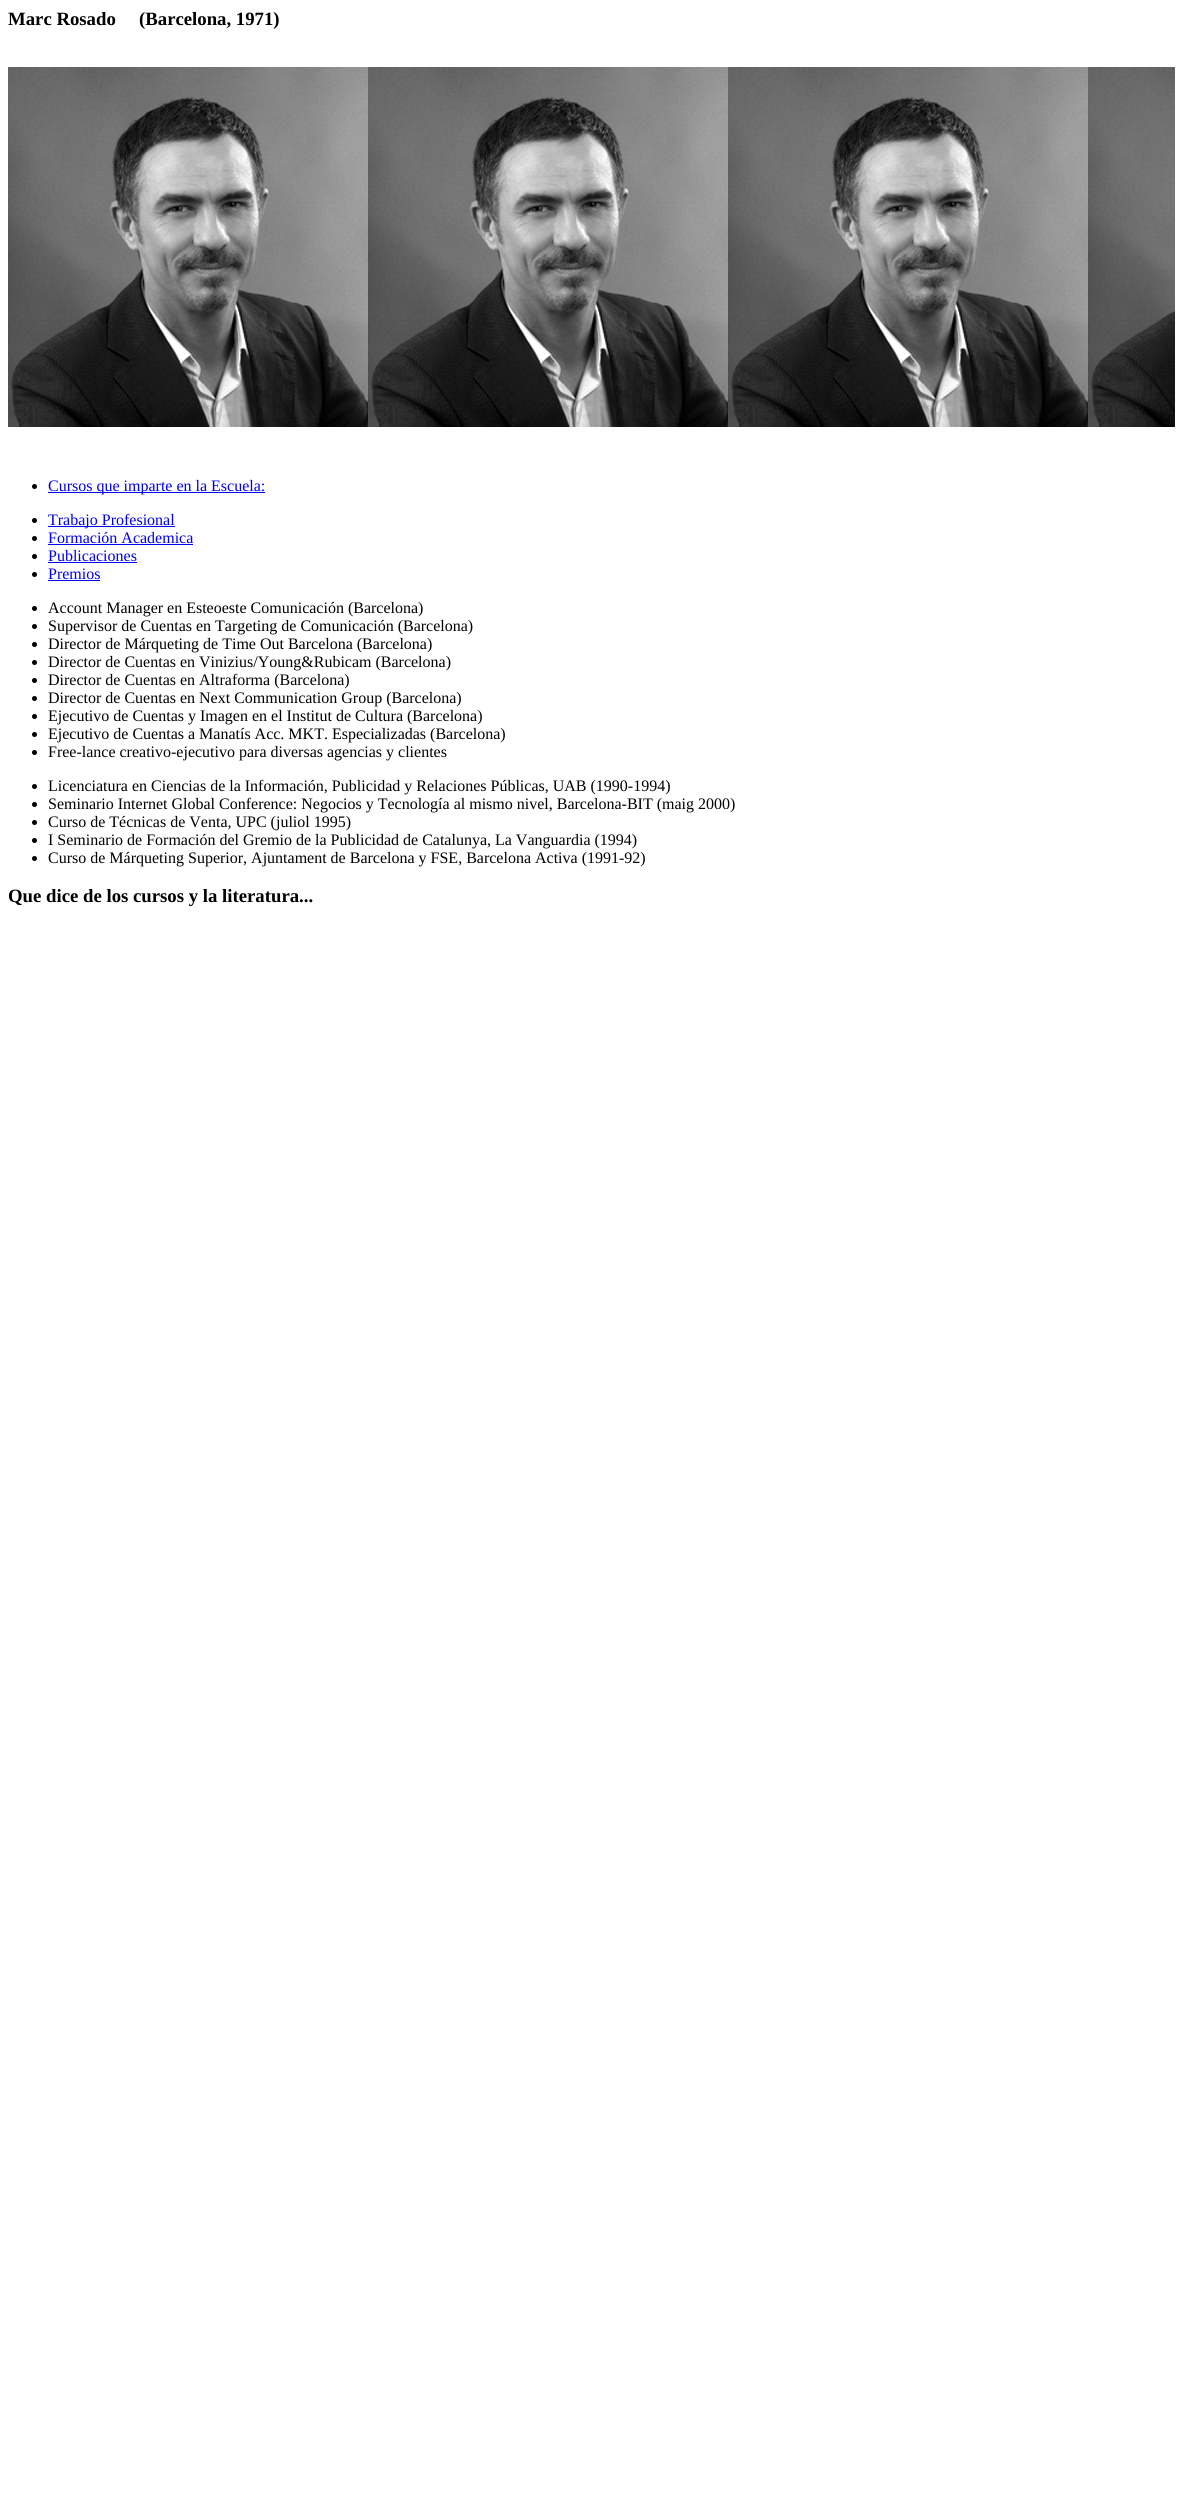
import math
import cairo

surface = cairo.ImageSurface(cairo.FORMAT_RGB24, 1183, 2503)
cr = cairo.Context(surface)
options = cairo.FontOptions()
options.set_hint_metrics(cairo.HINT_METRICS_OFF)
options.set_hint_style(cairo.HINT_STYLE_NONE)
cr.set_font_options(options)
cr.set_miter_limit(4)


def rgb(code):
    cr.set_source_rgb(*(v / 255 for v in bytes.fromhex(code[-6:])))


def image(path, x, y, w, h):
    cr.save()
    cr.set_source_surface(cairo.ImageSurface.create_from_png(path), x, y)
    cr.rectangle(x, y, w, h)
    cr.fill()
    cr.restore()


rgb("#ffffff")
cr.paint()
image("img/1.png", 8, 67, 1167, 360)
rgb("#000000")
cr.arc(34.5, 486.5, 2.5, 0, 2 * math.pi)
cr.fill()
rgb("#0000ee")
cr.rectangle(48, 492, 217, 1)
cr.fill()
rgb("#000000")
cr.arc(34.5, 520.5, 2.5, 0, 2 * math.pi)
cr.fill()
rgb("#0000ee")
cr.rectangle(48, 526, 127, 1)
cr.fill()
rgb("#000000")
cr.arc(34.5, 538.5, 2.5, 0, 2 * math.pi)
cr.fill()
rgb("#0000ee")
cr.rectangle(48, 544, 145, 1)
cr.fill()
rgb("#000000")
cr.arc(34.5, 556.5, 2.5, 0, 2 * math.pi)
cr.fill()
rgb("#0000ee")
cr.rectangle(48, 562, 89, 1)
cr.fill()
rgb("#000000")
cr.arc(34.5, 574.5, 2.5, 0, 2 * math.pi)
cr.fill()
rgb("#0000ee")
cr.rectangle(48, 580, 52, 1)
cr.fill()
rgb("#000000")
cr.arc(34.5, 608.5, 2.5, 0, 2 * math.pi)
cr.fill()
cr.arc(34.5, 626.5, 2.5, 0, 2 * math.pi)
cr.fill()
cr.arc(34.5, 644.5, 2.5, 0, 2 * math.pi)
cr.fill()
cr.arc(34.5, 662.5, 2.5, 0, 2 * math.pi)
cr.fill()
cr.arc(34.5, 680.5, 2.5, 0, 2 * math.pi)
cr.fill()
cr.arc(34.5, 698.5, 2.5, 0, 2 * math.pi)
cr.fill()
cr.arc(34.5, 716.5, 2.5, 0, 2 * math.pi)
cr.fill()
cr.arc(34.5, 734.5, 2.5, 0, 2 * math.pi)
cr.fill()
cr.arc(34.5, 752.5, 2.5, 0, 2 * math.pi)
cr.fill()
cr.arc(34.5, 786.5, 2.5, 0, 2 * math.pi)
cr.fill()
cr.arc(34.5, 804.5, 2.5, 0, 2 * math.pi)
cr.fill()
cr.arc(34.5, 822.5, 2.5, 0, 2 * math.pi)
cr.fill()
cr.arc(34.5, 840.5, 2.5, 0, 2 * math.pi)
cr.fill()
cr.arc(34.5, 858.5, 2.5, 0, 2 * math.pi)
cr.fill()
cr.select_font_face("Liberation Serif", cairo.FONT_SLANT_NORMAL, cairo.FONT_WEIGHT_BOLD)
cr.set_font_size(18.75)
cr.move_to(8, 25)
cr.show_text("Marc Rosado")
cr.move_to(139, 25)
cr.show_text("(Barcelona, 1971)")
cr.select_font_face("Liberation Serif")
cr.set_font_size(16)
rgb("#0000ee")
for x, y, s in [
    (48, 491, "Cursos que imparte en la Escuela:"),
    (48, 525, "Trabajo Profesional"),
    (48, 543, "Formación Academica"),
    (48, 561, "Publicaciones"),
    (48, 579, "Premios"),
]:
    cr.move_to(x, y)
    cr.show_text(s)
rgb("#000000")
for x, y, s in [
    (48, 613, "Account Manager en Esteoeste Comunicación (Barcelona)"),
    (48, 631, "Supervisor de Cuentas en Targeting de Comunicación (Barcelona)"),
    (48, 649, "Director de Márqueting de Time Out Barcelona (Barcelona)"),
    (48, 667, "Director de Cuentas en Vinizius/Young&Rubicam (Barcelona)"),
    (48, 685, "Director de Cuentas en Altraforma (Barcelona)"),
    (48, 703, "Director de Cuentas en Next Communication Group (Barcelona)"),
    (48, 721, "Ejecutivo de Cuentas y Imagen en el Institut de Cultura (Barcelona)"),
    (48, 739, "Ejecutivo de Cuentas a Manatís Acc. MKT. Especializadas (Barcelona)"),
    (48, 757, "Free-lance creativo-ejecutivo para diversas agencias y clientes"),
    (48, 791, "Licenciatura en Ciencias de la Información, Publicidad y Relaciones Públicas, UAB (1990-1994)"),
    (48, 809, "Seminario Internet Global Conference: Negocios y Tecnología al mismo nivel, Barcelona-BIT (maig 2000)"),
    (48, 827, "Curso de Técnicas de Venta, UPC (juliol 1995)"),
    (48, 845, "I Seminario de Formación del Gremio de la Publicidad de Catalunya, La Vanguardia (1994)"),
    (48, 863, "Curso de Márqueting Superior, Ajuntament de Barcelona y FSE, Barcelona Activa (1991-92)"),
]:
    cr.move_to(x, y)
    cr.show_text(s)
cr.select_font_face("Liberation Serif", cairo.FONT_SLANT_NORMAL, cairo.FONT_WEIGHT_BOLD)
cr.set_font_size(18.75)
cr.move_to(8, 902)
cr.show_text("Que dice de los cursos y la literatura...")
surface.write_to_png("page.png")
